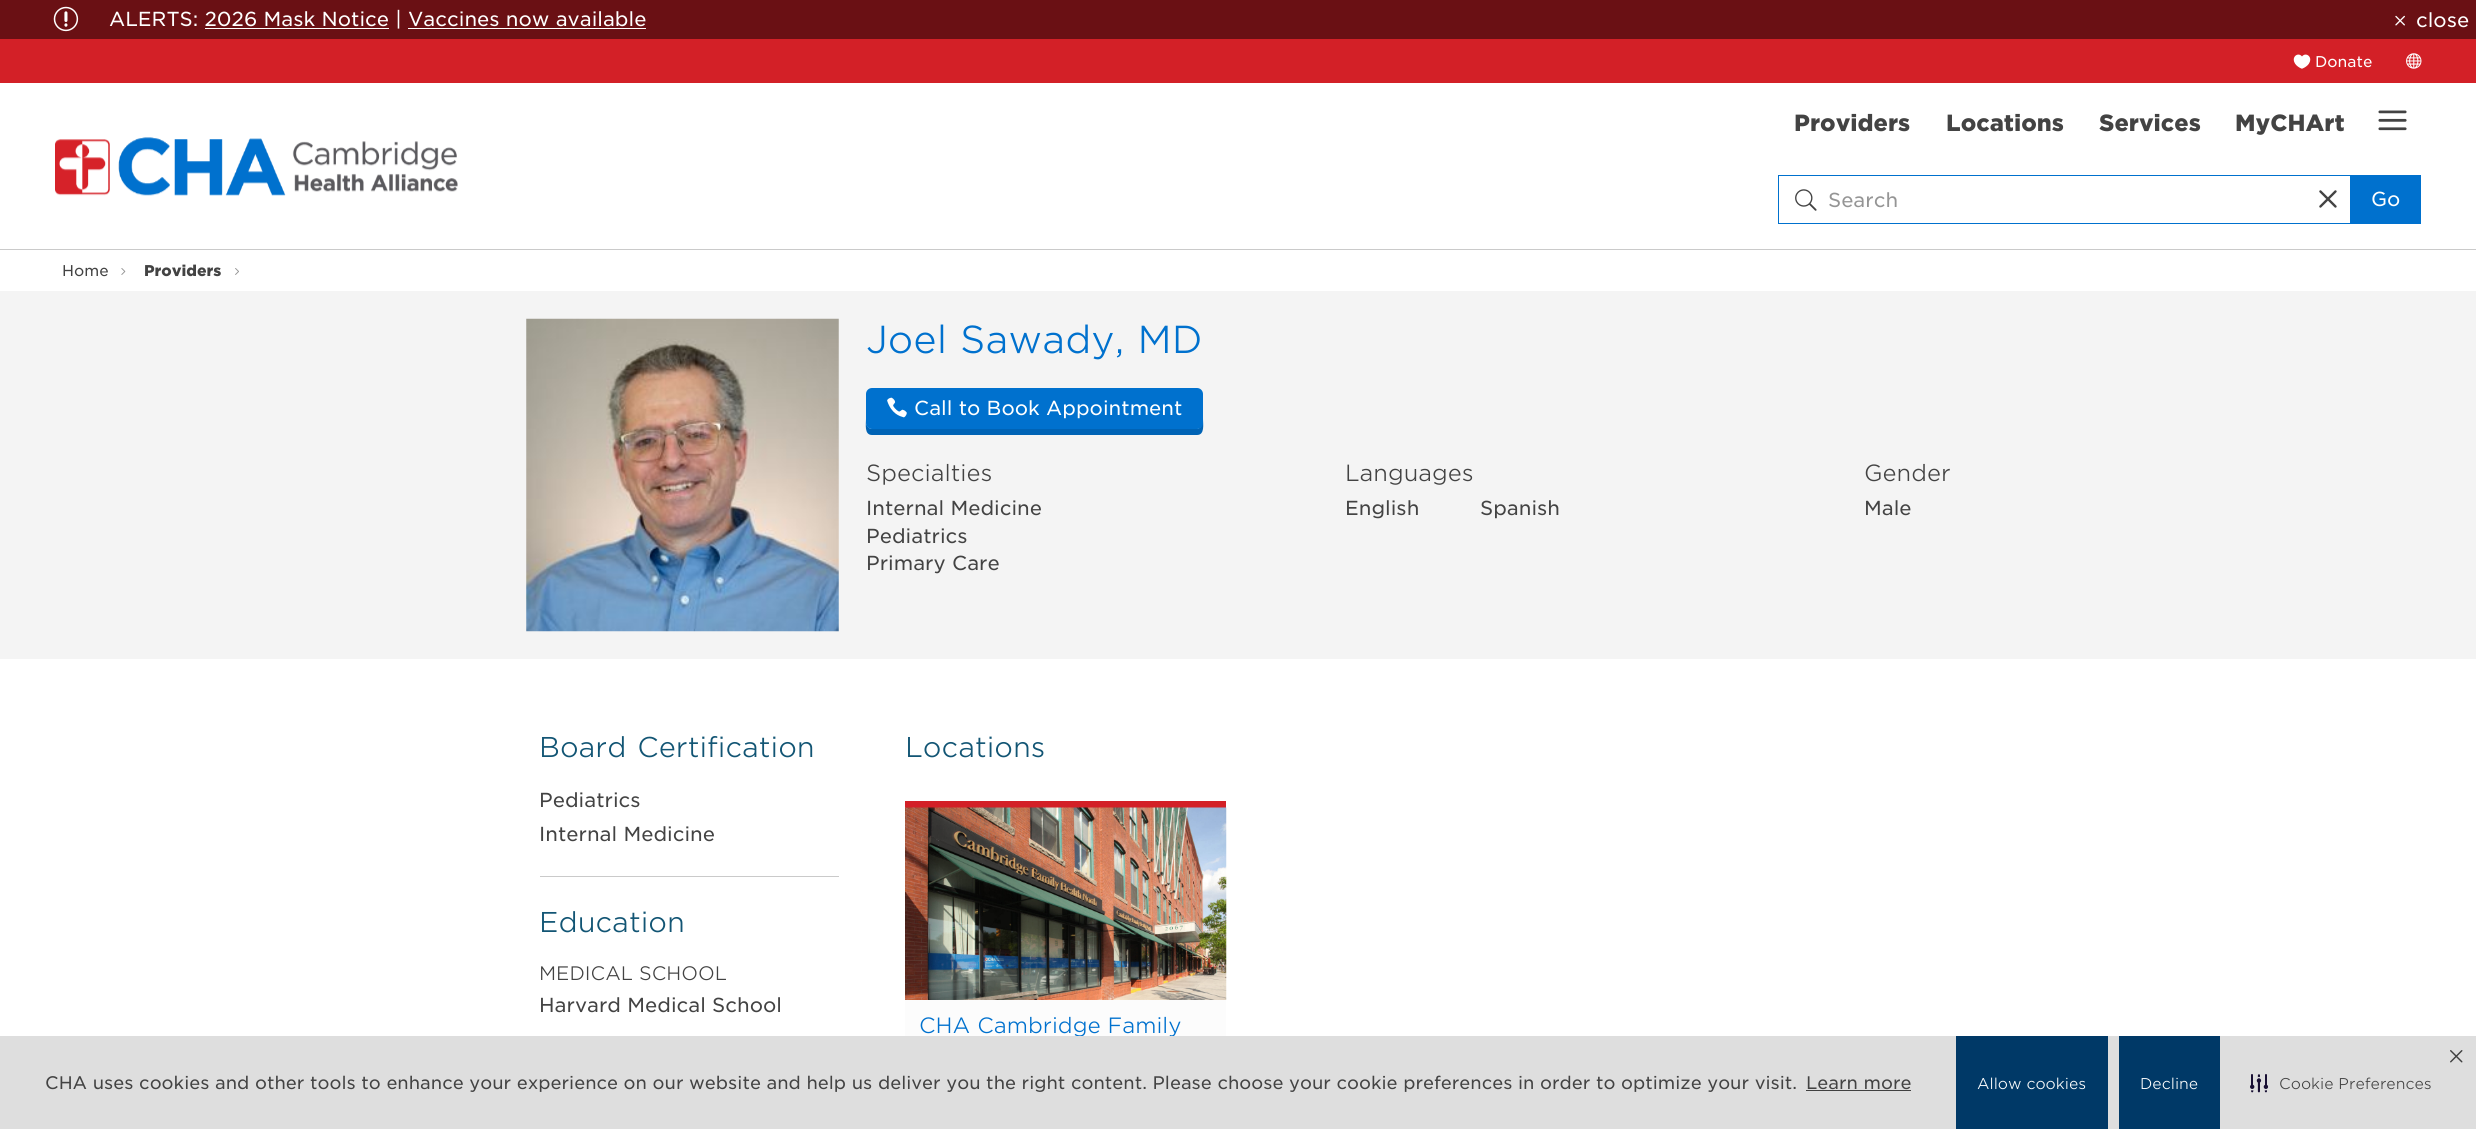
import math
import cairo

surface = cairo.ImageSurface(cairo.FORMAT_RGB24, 2476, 1129)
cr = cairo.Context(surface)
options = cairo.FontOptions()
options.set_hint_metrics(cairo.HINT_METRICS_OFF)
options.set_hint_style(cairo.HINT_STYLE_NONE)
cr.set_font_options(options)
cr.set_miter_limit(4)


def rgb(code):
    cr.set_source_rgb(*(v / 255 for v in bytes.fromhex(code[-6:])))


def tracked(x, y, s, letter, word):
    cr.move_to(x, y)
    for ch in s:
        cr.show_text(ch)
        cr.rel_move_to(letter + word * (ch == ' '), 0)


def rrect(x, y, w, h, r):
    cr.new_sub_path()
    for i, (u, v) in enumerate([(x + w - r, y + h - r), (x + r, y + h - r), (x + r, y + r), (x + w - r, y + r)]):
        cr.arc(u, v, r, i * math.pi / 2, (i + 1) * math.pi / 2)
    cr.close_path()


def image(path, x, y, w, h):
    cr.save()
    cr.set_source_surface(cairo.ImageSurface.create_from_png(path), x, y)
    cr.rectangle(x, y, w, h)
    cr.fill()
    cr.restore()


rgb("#ffffff")
cr.paint()
rgb("#cacaca")
cr.rectangle(0, 249, 2476, 1)
cr.fill()
rgb("#6a1014")
cr.rectangle(0, 0, 2476, 39)
cr.fill()
image("img/1.png", 53, 6, 26, 26)
rgb("#ffffff")
cr.rectangle(205, 28, 184, 1)
cr.fill()
cr.rectangle(408, 28, 238, 1)
cr.fill()
image("img/2.png", 2395, 15, 10, 11)
rgb("#d32027")
cr.rectangle(0, 39, 2476, 44)
cr.fill()
image("img/3.png", 2293, 54, 18, 15)
image("img/4.png", 2406, 53, 16, 16)
image("img/5.png", 55, 137, 403, 59)
image("img/6.png", 2378, 110, 29, 21)
cr.rectangle(1778.5, 175.5, 572, 48)
rgb("#0071ce")
cr.set_line_width(1)
cr.stroke()
image("img/7.png", 1795, 189, 22, 22)
image("img/8.png", 2319, 190, 18, 18)
cr.rectangle(2351, 175, 70, 49)
cr.fill()
image("img/9.png", 121, 268, 5, 7)
image("img/10.png", 235, 268, 4, 7)
rgb("#f4f4f4")
cr.rectangle(0, 291, 2476, 368)
cr.fill()
image("img/11.png", 526, 318, 313, 314)
rgb("#0063b5")
cr.new_path()
cr.move_to(866, 398)
cr.line_to(866, 419)
cr.curve_to(866, 424, 864, 435, 872, 435)
cr.line_to(1197, 435)
cr.curve_to(1205, 435, 1203, 424, 1203, 419)
cr.line_to(1202, 398)
cr.line_to(1202, 422)
cr.curve_to(1202, 426, 1200, 429, 1196, 429)
cr.line_to(872, 429)
cr.curve_to(869, 429, 866, 426, 866, 422)
cr.close_path()
cr.fill()
rgb("#0071ce")
rrect(866, 388, 337, 41, 6)
cr.fill()
image("img/12.png", 887, 397, 20, 21)
for x, y, w, h, color in [
    (540, 876, 299, 1, "#cacaca"),
    (905, 1000, 321, 36, "#fcfcfc"),
    (905, 801, 321, 7, "#d32027"),
]:
    rgb(color)
    cr.rectangle(x, y, w, h)
    cr.fill()
image("img/13.png", 905, 807, 322, 193)
cr.select_font_face("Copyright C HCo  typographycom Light")
cr.set_font_size(19.5)
rgb("#ffffff")
cr.move_to(109, 26)
cr.show_text("ALERTS: 2026 Mask Notice | Vaccines now available")
cr.move_to(2416, 27)
cr.show_text("close")
cr.set_font_size(15)
cr.move_to(2315, 67)
cr.show_text("Donate")
cr.select_font_face("Copyright C HCo  typographycom")
cr.set_font_size(22.5)
rgb("#434343")
for x, y, s in [
    (1794, 131, "Providers"),
    (1946, 131, "Locations"),
    (2099, 131, "Services"),
    (2235, 131, "MyCHArt"),
]:
    cr.move_to(x, y)
    cr.show_text(s)
cr.select_font_face("Copyright C HCo  typographycom Light")
cr.set_font_size(19.5)
rgb("#959595")
cr.move_to(1828, 207)
cr.show_text("Search")
rgb("#ffffff")
cr.move_to(2371, 206)
cr.show_text("Go")
cr.set_font_size(15)
rgb("#434343")
cr.move_to(62, 276)
cr.show_text("Home")
cr.select_font_face("Copyright C HCo  typographycom")
cr.move_to(144, 276)
cr.show_text("Providers")
cr.select_font_face("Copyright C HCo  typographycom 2 Light")
cr.set_font_size(37.5)
rgb("#0071ce")
tracked(866, 353, "Joel Sawady, MD", 0, 1)
cr.select_font_face("Copyright C HCo  typographycom Light")
cr.set_font_size(19.5)
rgb("#ffffff")
cr.move_to(914, 415)
cr.show_text("Call to Book Appointment")
cr.select_font_face("Copyright C HCo  typographycom 2 Light")
cr.set_font_size(22.5)
rgb("#434343")
cr.move_to(866, 481)
cr.show_text("Specialties")
cr.select_font_face("Copyright C HCo  typographycom Light")
cr.set_font_size(19.5)
for x, y, s in [
    (866, 515, "Internal Medicine"),
    (866, 543, "Pediatrics"),
    (866, 570, "Primary Care"),
]:
    cr.move_to(x, y)
    cr.show_text(s)
cr.select_font_face("Copyright C HCo  typographycom 2 Light")
cr.set_font_size(22.5)
cr.move_to(1345, 481)
cr.show_text("Languages")
cr.select_font_face("Copyright C HCo  typographycom Light")
cr.set_font_size(19.5)
cr.move_to(1345, 515)
cr.show_text("English")
cr.move_to(1480, 515)
cr.show_text("Spanish")
cr.select_font_face("Copyright C HCo  typographycom 2 Light")
cr.set_font_size(22.5)
cr.move_to(1864, 481)
cr.show_text("Gender")
cr.select_font_face("Copyright C HCo  typographycom Light")
cr.set_font_size(19.5)
cr.move_to(1864, 515)
cr.show_text("Male")
cr.select_font_face("Copyright C HCo  typographycom 2 Light")
cr.set_font_size(27.5)
rgb("#125574")
tracked(539, 757, "Board Certification", 0, 2)
cr.select_font_face("Copyright C HCo  typographycom Light")
cr.set_font_size(19.5)
rgb("#434343")
cr.move_to(539, 807)
cr.show_text("Pediatrics")
cr.move_to(539, 841)
cr.show_text("Internal Medicine")
cr.select_font_face("Copyright C HCo  typographycom 2 Light")
cr.set_font_size(27.5)
rgb("#125574")
cr.move_to(539, 932)
cr.show_text("Education")
cr.set_font_size(18.75)
rgb("#434343")
cr.move_to(539, 980)
cr.show_text("MEDICAL SCHOOL")
cr.select_font_face("Copyright C HCo  typographycom Light")
cr.set_font_size(19.5)
cr.move_to(539, 1012)
cr.show_text("Harvard Medical School")
cr.select_font_face("Copyright C HCo  typographycom 2 Light")
cr.set_font_size(27.5)
rgb("#125574")
cr.move_to(905, 757)
cr.show_text("Locations")
cr.set_font_size(21.25)
rgb("#0071ce")
cr.move_to(919, 1033)
cr.show_text("CHA Cambridge Family")
rgb("#dedede")
cr.rectangle(0, 1036, 2476, 93)
cr.fill()
cr.select_font_face("Copyright C HCo  typographycom Light")
cr.set_font_size(17.5)
rgb("#434343")
cr.move_to(45, 1089)
cr.show_text("CHA uses cookies and other tools to enhance your experience on our website and help us deliver you the right content. Please choose your cookie preferences in order to optimize your visit.")
cr.move_to(1806, 1089)
cr.show_text("Learn more")
rgb("#404040")
cr.rectangle(1806, 1090, 105, 1)
cr.fill()
image("img/14.png", 2450, 1050, 13, 13)
rgb("#003967")
cr.rectangle(1956, 1036, 152, 93)
cr.fill()
cr.select_font_face("Copyright C HCo  typographycom 2 Light")
cr.set_font_size(15)
rgb("#ffffff")
cr.move_to(1977, 1089)
cr.show_text("Allow cookies")
rgb("#003967")
cr.rectangle(2119, 1036, 101, 93)
cr.fill()
rgb("#ffffff")
cr.move_to(2140, 1089)
cr.show_text("Decline")
image("img/15.png", 2250, 1074, 19, 19)
rgb("#434343")
cr.move_to(2279, 1089)
cr.show_text("Cookie Preferences")
surface.write_to_png("page.png")
